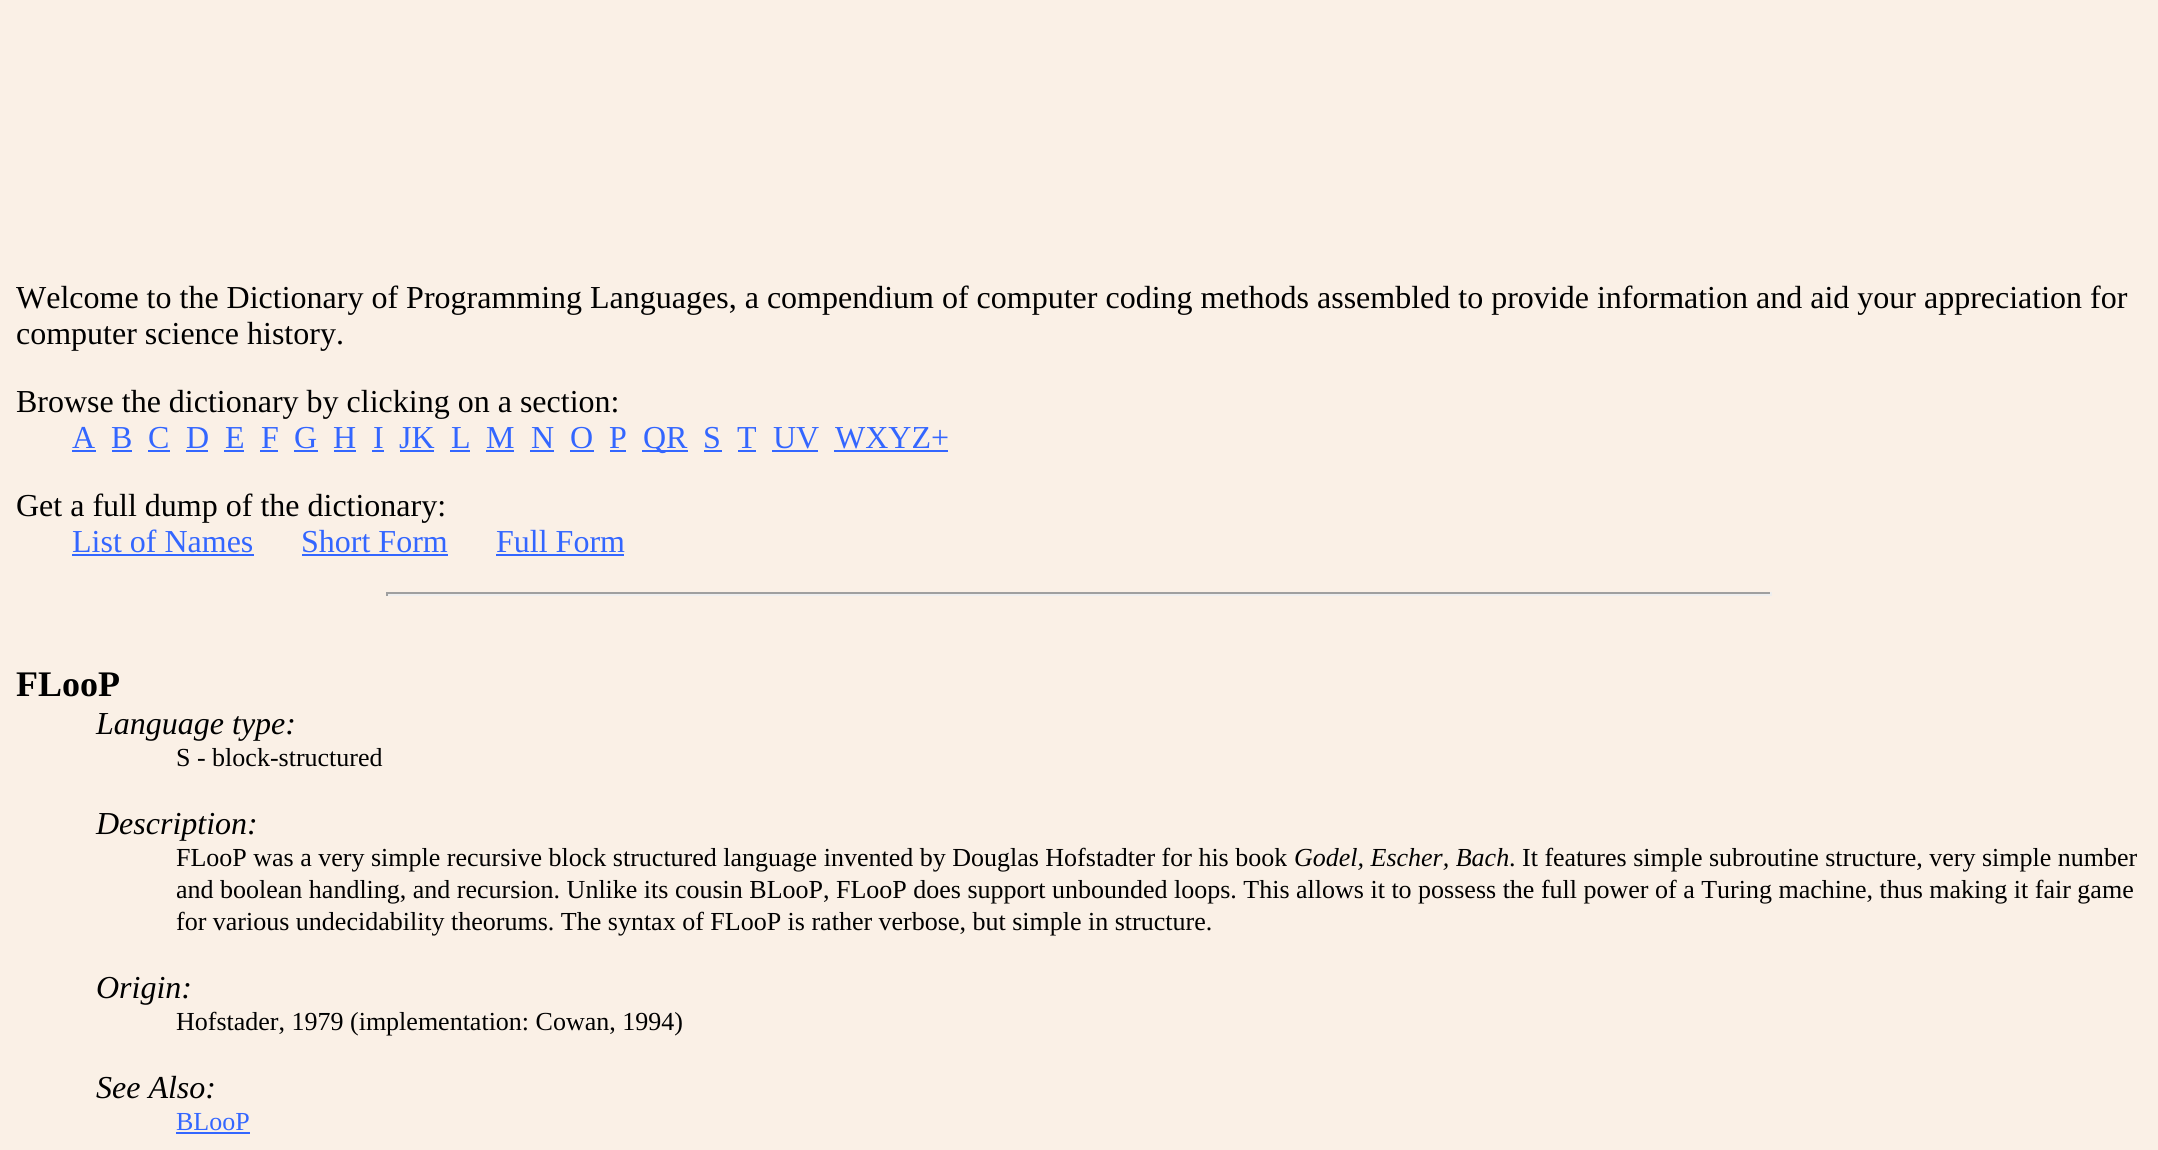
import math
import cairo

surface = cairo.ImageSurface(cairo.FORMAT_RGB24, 2158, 1150)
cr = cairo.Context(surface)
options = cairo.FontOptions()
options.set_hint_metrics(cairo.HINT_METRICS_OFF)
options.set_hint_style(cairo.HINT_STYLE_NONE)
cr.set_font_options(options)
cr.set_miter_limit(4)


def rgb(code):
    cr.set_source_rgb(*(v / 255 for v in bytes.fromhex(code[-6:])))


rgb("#faf0e6")
cr.paint()
for x, y, w, h, color in [
    (72, 450, 24, 2, "#3366ff"),
    (112, 450, 20, 2, "#3366ff"),
    (148, 450, 22, 2, "#3366ff"),
    (186, 450, 22, 2, "#3366ff"),
    (224, 450, 20, 2, "#3366ff"),
    (260, 450, 18, 2, "#3366ff"),
    (294, 450, 24, 2, "#3366ff"),
    (334, 450, 22, 2, "#3366ff"),
    (372, 450, 12, 2, "#3366ff"),
    (400, 450, 34, 2, "#3366ff"),
    (450, 450, 20, 2, "#3366ff"),
    (486, 450, 28, 2, "#3366ff"),
    (530, 450, 24, 2, "#3366ff"),
    (570, 450, 24, 2, "#3366ff"),
    (610, 450, 16, 2, "#3366ff"),
    (642, 450, 46, 2, "#3366ff"),
    (704, 450, 18, 2, "#3366ff"),
    (738, 450, 18, 2, "#3366ff"),
    (772, 450, 46, 2, "#3366ff"),
    (834, 450, 114, 2, "#3366ff"),
    (72, 554, 182, 2, "#3366ff"),
    (302, 554, 146, 2, "#3366ff"),
    (496, 554, 128, 2, "#3366ff"),
    (386, 592, 1386, 2, "#9f9f9f"),
    (1770, 592, 2, 4, "#eeeeee"),
    (386, 594, 1386, 2, "#eeeeee"),
    (386, 592, 2, 4, "#9f9f9f"),
    (176, 1132, 74, 2, "#3366ff"),
]:
    rgb(color)
    cr.rectangle(x, y, w, h)
    cr.fill()
cr.select_font_face("Liberation Serif")
cr.set_font_size(32)
rgb("#000000")
for x, y, s in [
    (16, 308, "Welcome to the Dictionary of Programming Languages, a compendium of computer coding methods assembled to provide information and aid your appreciation for"),
    (16, 344, "computer science history."),
    (16, 412, "Browse the dictionary by clicking on a section:"),
]:
    cr.move_to(x, y)
    cr.show_text(s)
rgb("#3366ff")
for x, y, s in [
    (72, 448, "A"),
    (111, 448, "B"),
    (148, 448, "C"),
    (186, 448, "D"),
    (225, 448, "E"),
    (261, 448, "F"),
    (294, 448, "G"),
    (333, 448, "H"),
    (373, 448, "I"),
    (399, 448, "JK"),
    (451, 448, "L"),
    (486, 448, "M"),
    (531, 448, "N"),
    (570, 448, "O"),
    (609, 448, "P"),
    (643, 448, "QR"),
    (703, 448, "S"),
    (737, 448, "T"),
    (773, 448, "UV"),
    (835, 448, "WXYZ+"),
]:
    cr.move_to(x, y)
    cr.show_text(s)
rgb("#000000")
cr.move_to(16, 516)
cr.show_text("Get a full dump of the dictionary:")
rgb("#3366ff")
for x, y, s in [
    (72, 552, "List of Names"),
    (301, 552, "Short Form"),
    (496, 552, "Full Form"),
]:
    cr.move_to(x, y)
    cr.show_text(s)
cr.select_font_face("Liberation Serif", cairo.FONT_SLANT_NORMAL, cairo.FONT_WEIGHT_BOLD)
cr.set_font_size(36)
rgb("#000000")
cr.move_to(16, 696)
cr.show_text("FLooP")
cr.select_font_face("Liberation Serif", cairo.FONT_SLANT_ITALIC)
cr.set_font_size(32)
cr.move_to(96, 734)
cr.show_text("Language type:")
cr.select_font_face("Liberation Serif")
cr.set_font_size(26)
cr.move_to(176, 766)
cr.show_text("S - block-structured")
cr.select_font_face("Liberation Serif", cairo.FONT_SLANT_ITALIC)
cr.set_font_size(32)
cr.move_to(96, 834)
cr.show_text("Description:")
cr.select_font_face("Liberation Serif")
cr.set_font_size(26)
cr.move_to(176, 866)
cr.show_text("FLooP was a very simple recursive block structured language invented by Douglas Hofstadter for his book")
cr.select_font_face("Liberation Serif", cairo.FONT_SLANT_ITALIC)
cr.move_to(1294, 866)
cr.show_text("Godel, Escher, Bach")
cr.select_font_face("Liberation Serif")
for x, y, s in [
    (1509, 866, ". It features simple subroutine structure, very simple number"),
    (176, 898, "and boolean handling, and recursion. Unlike its cousin BLooP, FLooP does support unbounded loops. This allows it to possess the full power of a Turing machine, thus making it fair game"),
    (176, 930, "for various undecidability theorums. The syntax of FLooP is rather verbose, but simple in structure."),
]:
    cr.move_to(x, y)
    cr.show_text(s)
cr.select_font_face("Liberation Serif", cairo.FONT_SLANT_ITALIC)
cr.set_font_size(32)
cr.move_to(96, 998)
cr.show_text("Origin:")
cr.select_font_face("Liberation Serif")
cr.set_font_size(26)
cr.move_to(176, 1030)
cr.show_text("Hofstader, 1979 (implementation: Cowan, 1994)")
cr.select_font_face("Liberation Serif", cairo.FONT_SLANT_ITALIC)
cr.set_font_size(32)
cr.move_to(96, 1098)
cr.show_text("See Also:")
cr.select_font_face("Liberation Serif")
cr.set_font_size(26)
rgb("#3366ff")
cr.move_to(176, 1130)
cr.show_text("BLooP")
surface.write_to_png("page.png")
